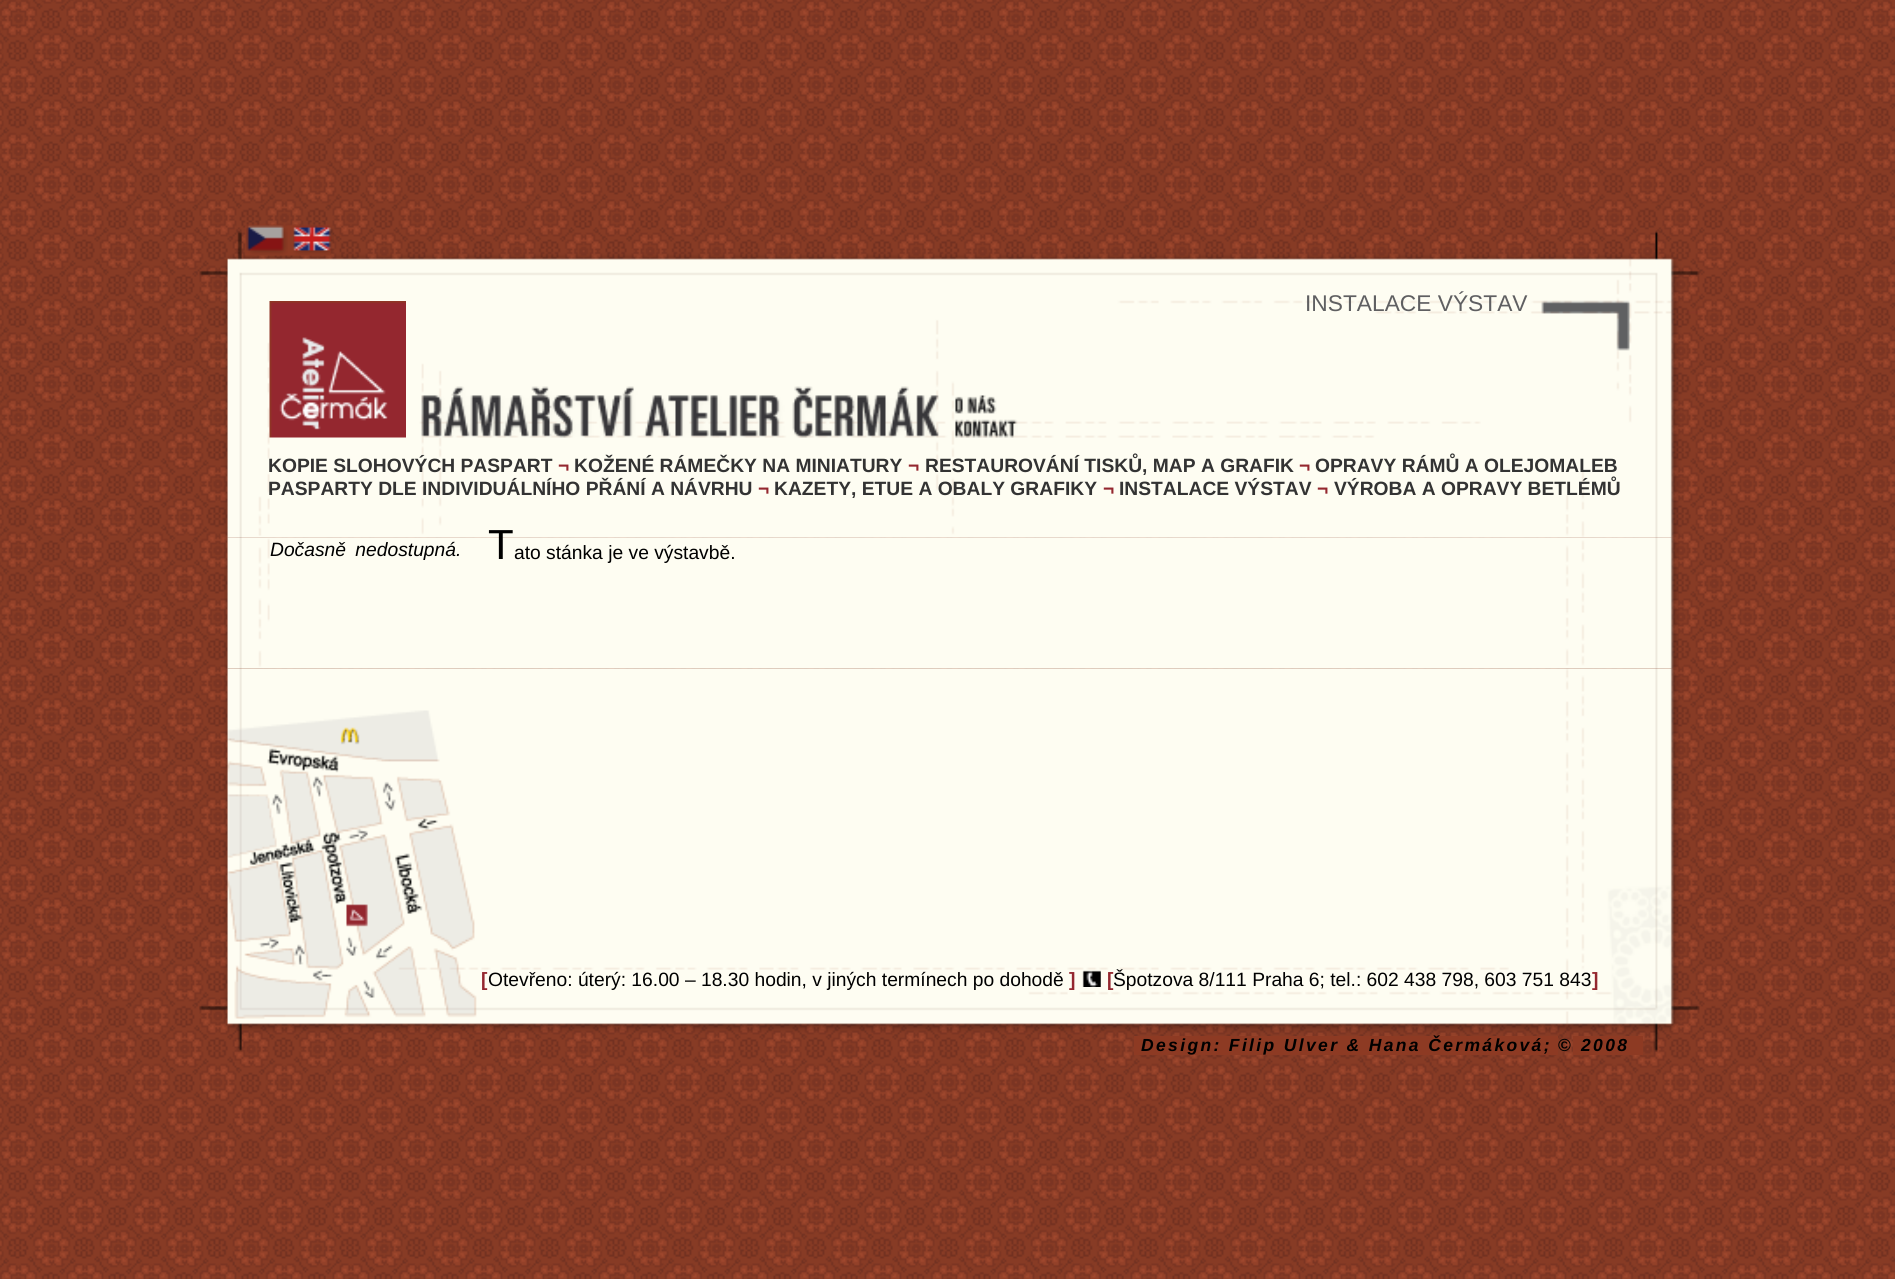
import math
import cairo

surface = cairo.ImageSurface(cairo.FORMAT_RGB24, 1895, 1279)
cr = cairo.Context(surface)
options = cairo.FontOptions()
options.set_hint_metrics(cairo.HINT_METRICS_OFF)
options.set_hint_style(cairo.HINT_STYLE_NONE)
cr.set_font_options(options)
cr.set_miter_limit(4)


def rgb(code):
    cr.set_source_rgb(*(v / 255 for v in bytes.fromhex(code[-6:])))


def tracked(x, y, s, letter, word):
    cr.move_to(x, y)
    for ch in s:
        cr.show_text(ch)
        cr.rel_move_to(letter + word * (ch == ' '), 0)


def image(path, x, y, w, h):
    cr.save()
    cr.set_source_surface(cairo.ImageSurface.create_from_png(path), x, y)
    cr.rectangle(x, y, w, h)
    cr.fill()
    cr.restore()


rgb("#ffffff")
cr.paint()
image("img/1.png", 0, 0, 1895, 1279)
image("img/2.png", 199, 224, 1501, 314)
image("img/3.png", 246, 225, 42, 30)
image("img/4.png", 293, 225, 41, 30)
image("img/5.png", 269, 301, 137, 137)
image("img/6.png", 421, 386, 518, 52)
image("img/7.png", 955, 395, 42, 19)
image("img/8.png", 955, 419, 63, 19)
image("img/9.png", 224, 537, 1455, 132)
image("img/10.png", 199, 668, 1501, 384)
image("img/11.png", 1082, 970, 19, 17)
rgb("#8d3a23")
cr.rectangle(1134, 1036, 424, 19)
cr.fill()
cr.rectangle(1573, 1036, 70, 19)
cr.fill()
cr.select_font_face("Liberation Sans")
cr.set_font_size(22.75)
rgb("#5f5f61")
cr.move_to(1305, 311)
cr.show_text("INSTALACE VÝSTAV")
cr.select_font_face("Liberation Sans", cairo.FONT_SLANT_NORMAL, cairo.FONT_WEIGHT_BOLD)
cr.set_font_size(19.25)
rgb("#333333")
cr.move_to(268, 472)
cr.show_text("KOPIE SLOHOVÝCH PASPART")
rgb("#94272f")
cr.move_to(558, 472)
cr.show_text("¬")
rgb("#333333")
cr.move_to(574, 472)
cr.show_text("KOŽENÉ RÁMEČKY NA MINIATURY")
rgb("#94272f")
cr.move_to(908, 472)
cr.show_text("¬")
rgb("#333333")
cr.move_to(925, 472)
cr.show_text("RESTAUROVÁNÍ TISKŮ, MAP A GRAFIK")
rgb("#94272f")
cr.move_to(1299, 472)
cr.show_text("¬")
rgb("#333333")
cr.move_to(1315, 472)
cr.show_text("OPRAVY RÁMŮ A OLEJOMALEB")
cr.move_to(268, 495)
cr.show_text("PASPARTY DLE INDIVIDUÁLNÍHO PŘÁNÍ A NÁVRHU")
rgb("#94272f")
cr.move_to(758, 495)
cr.show_text("¬")
rgb("#333333")
cr.move_to(774, 495)
cr.show_text("KAZETY, ETUE A OBALY GRAFIKY")
rgb("#94272f")
cr.move_to(1103, 495)
cr.show_text("¬")
rgb("#333333")
cr.move_to(1119, 495)
cr.show_text("INSTALACE VÝSTAV")
rgb("#94272f")
cr.move_to(1317, 495)
cr.show_text("¬")
rgb("#333333")
cr.move_to(1334, 495)
cr.show_text("VÝROBA A OPRAVY BETLÉMŮ")
cr.select_font_face("Liberation Sans")
cr.set_font_size(42)
rgb("#000000")
cr.move_to(488, 559)
cr.show_text("T")
cr.set_font_size(19.25)
cr.move_to(514, 559)
cr.show_text("ato stánka je ve výstavbě.")
cr.select_font_face("Liberation Sans", cairo.FONT_SLANT_ITALIC)
tracked(270, 556, "Dočasně nedostupná.", 0, 4)
cr.select_font_face("Liberation Sans", cairo.FONT_SLANT_NORMAL, cairo.FONT_WEIGHT_BOLD)
rgb("#94272f")
cr.move_to(481, 986)
cr.show_text("[")
cr.select_font_face("Liberation Sans")
rgb("#000000")
cr.move_to(488, 986)
cr.show_text("Otevřeno: úterý: 16.00 – 18.30 hodin, v jiných termínech po dohodě")
cr.select_font_face("Liberation Sans", cairo.FONT_SLANT_NORMAL, cairo.FONT_WEIGHT_BOLD)
rgb("#94272f")
cr.move_to(1069, 986)
cr.show_text("]")
cr.move_to(1107, 986)
cr.show_text("[")
cr.select_font_face("Liberation Sans")
rgb("#000000")
cr.move_to(1113, 986)
cr.show_text("Špotzova 8/111 Praha 6; tel.: 602 438 798, 603 751 843")
cr.select_font_face("Liberation Sans", cairo.FONT_SLANT_NORMAL, cairo.FONT_WEIGHT_BOLD)
rgb("#94272f")
cr.move_to(1592, 986)
cr.show_text("]")
cr.select_font_face("Liberation Sans", cairo.FONT_SLANT_ITALIC, cairo.FONT_WEIGHT_BOLD)
cr.set_font_size(17.5)
rgb("#000000")
tracked(1141, 1051, "Design: Filip Ulver & Hana Čermáková;", 2.35, 0)
cr.select_font_face("Liberation Sans", cairo.FONT_SLANT_NORMAL, cairo.FONT_WEIGHT_BOLD)
tracked(1558, 1051, "©", 2.35, 0)
cr.select_font_face("Liberation Sans", cairo.FONT_SLANT_ITALIC, cairo.FONT_WEIGHT_BOLD)
tracked(1581, 1051, "2008", 2.35, 0)
surface.write_to_png("page.png")
